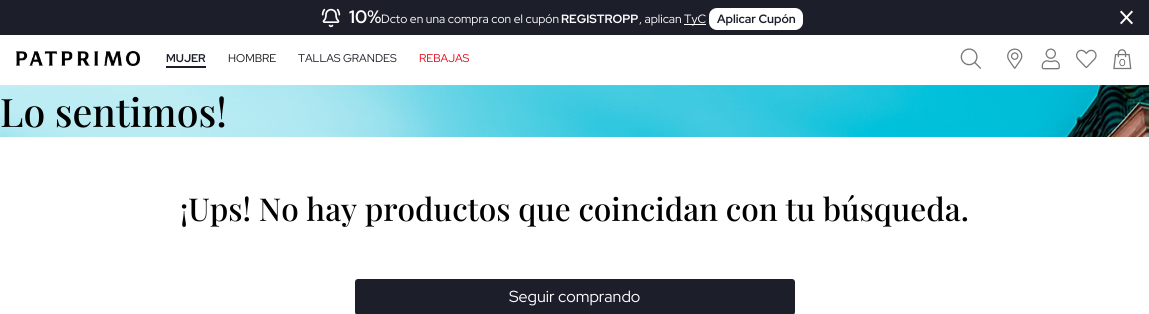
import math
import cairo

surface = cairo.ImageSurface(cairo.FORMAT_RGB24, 1149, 314)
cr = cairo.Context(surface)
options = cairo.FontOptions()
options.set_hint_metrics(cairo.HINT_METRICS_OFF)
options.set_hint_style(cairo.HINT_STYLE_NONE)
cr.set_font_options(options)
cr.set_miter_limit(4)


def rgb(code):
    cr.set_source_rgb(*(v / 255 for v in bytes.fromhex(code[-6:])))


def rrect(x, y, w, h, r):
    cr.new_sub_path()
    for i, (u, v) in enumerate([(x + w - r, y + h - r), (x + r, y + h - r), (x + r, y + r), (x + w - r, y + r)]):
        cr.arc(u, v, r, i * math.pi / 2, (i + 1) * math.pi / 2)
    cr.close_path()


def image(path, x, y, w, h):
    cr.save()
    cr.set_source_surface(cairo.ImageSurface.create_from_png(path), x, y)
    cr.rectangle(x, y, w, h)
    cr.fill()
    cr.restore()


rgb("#ffffff")
cr.paint()
rgb("#1c1f2a")
cr.rectangle(0, 0, 1149, 35)
cr.fill()
image("img/1.png", 321, 8, 20, 20)
rgb("#ffffff")
cr.rectangle(684, 24, 22, 1)
cr.fill()
rrect(709, 8, 94, 22, 8)
cr.fill()
image("img/2.png", 16, 51, 124, 15)
rgb("#1c1f2a")
cr.rectangle(166, 66, 40, 2)
cr.fill()
image("img/3.png", 960, 48, 22, 21)
image("img/4.png", 1007, 48, 16, 21)
image("img/5.png", 1041, 48, 19, 22)
image("img/6.png", 1076, 49, 21, 20)
image("img/7.png", 1113, 49, 19, 21)
image("img/8.png", 0, 85, 1149, 52)
rrect(355, 279, 440, 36, 3)
cr.fill()
cr.select_font_face("Red Hat Display", cairo.FONT_SLANT_NORMAL, cairo.FONT_WEIGHT_BOLD)
cr.set_font_size(18)
rgb("#ffffff")
cr.move_to(349, 23)
cr.show_text("10%")
cr.select_font_face("Red Hat Display")
cr.set_font_size(12)
cr.move_to(381, 23)
cr.show_text("Dcto en una compra con el cupón")
cr.select_font_face("Red Hat Display", cairo.FONT_SLANT_NORMAL, cairo.FONT_WEIGHT_BOLD)
cr.move_to(561, 23)
cr.show_text("REGISTROPP")
cr.select_font_face("Red Hat Display")
cr.move_to(639, 23)
cr.show_text(", aplican")
cr.move_to(684, 23)
cr.show_text("TyC")
cr.select_font_face("Red Hat Display", cairo.FONT_SLANT_NORMAL, cairo.FONT_WEIGHT_BOLD)
rgb("#1c1f2a")
cr.move_to(717, 23)
cr.show_text("Aplicar Cupón")
cr.select_font_face("Red Hat Display")
cr.set_font_size(35)
rgb("#ffffff")
cr.move_to(1116, 30)
cr.show_text("×")
cr.select_font_face("Red Hat Display", cairo.FONT_SLANT_NORMAL, cairo.FONT_WEIGHT_BOLD)
cr.set_font_size(11.25)
rgb("#1c1f2a")
cr.move_to(166, 62)
cr.show_text("MUJER")
cr.select_font_face("Red Hat Display")
rgb("#171616")
cr.move_to(228, 62)
cr.show_text("HOMBRE")
rgb("#1c1f2a")
cr.move_to(298, 62)
cr.show_text("TALLAS GRANDES")
rgb("#e30613")
cr.move_to(419, 62)
cr.show_text("REBAJAS")
cr.set_font_size(10)
rgb("#444444")
cr.move_to(1119, 66)
cr.show_text("0")
cr.select_font_face("Playfair Display Medium")
cr.set_font_size(39.25)
rgb("#000000")
cr.move_to(0, 127)
cr.show_text("Lo sentimos!")
cr.set_font_size(31.55)
cr.move_to(180, 221)
cr.show_text("¡Ups! No hay productos que coincidan con tu búsqueda.")
cr.select_font_face("Red Hat Display")
cr.set_font_size(16)
rgb("#ffffff")
cr.move_to(509, 302)
cr.show_text("Seguir comprando")
surface.write_to_png("page.png")
